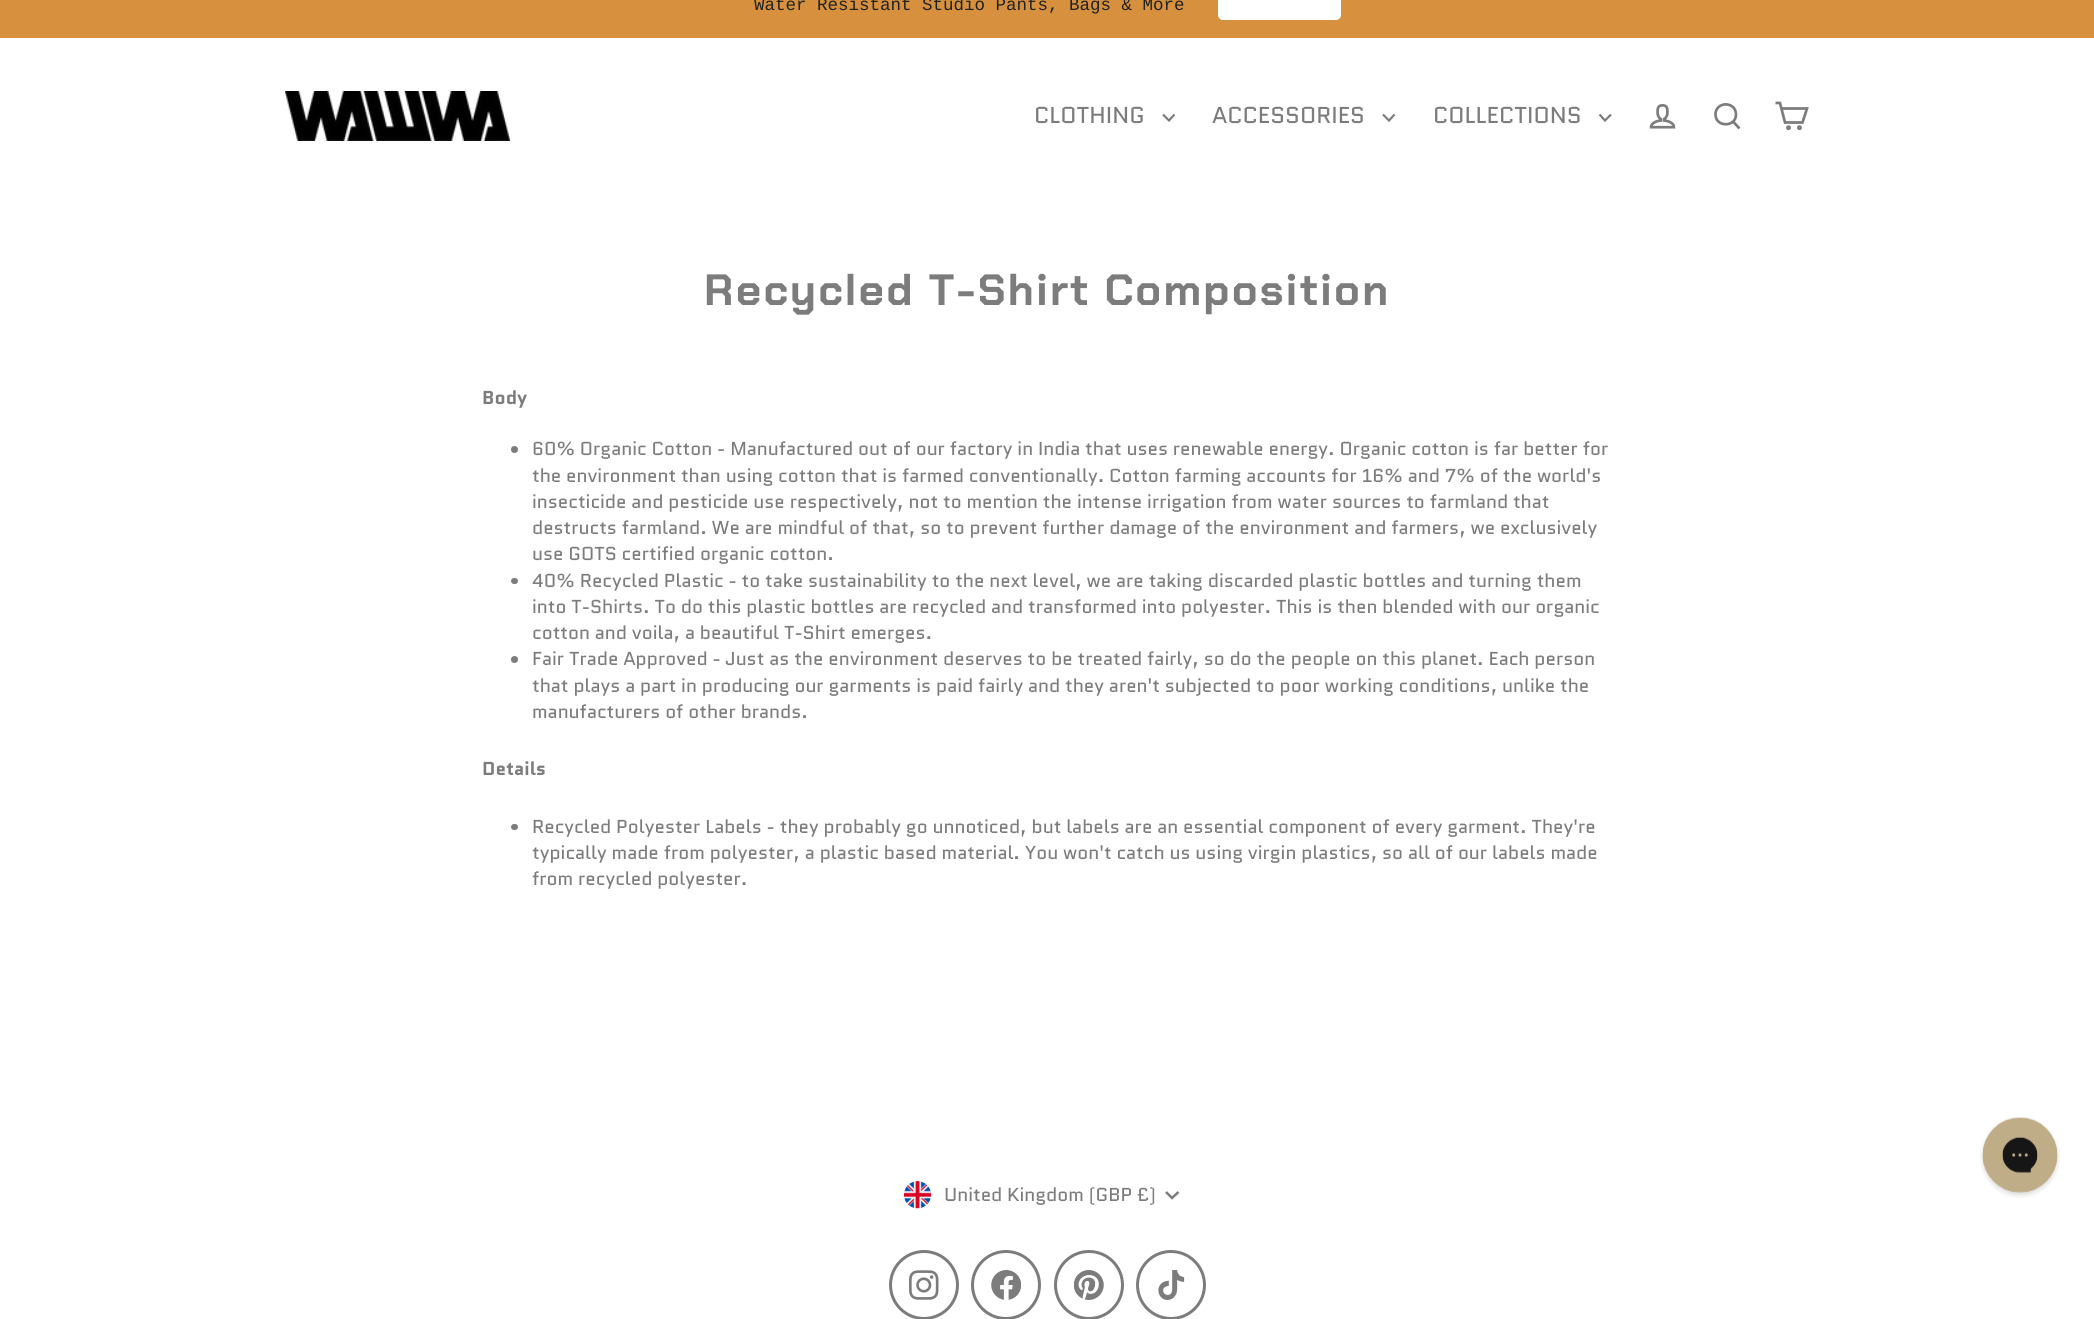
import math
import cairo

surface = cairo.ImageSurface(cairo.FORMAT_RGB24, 2094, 1319)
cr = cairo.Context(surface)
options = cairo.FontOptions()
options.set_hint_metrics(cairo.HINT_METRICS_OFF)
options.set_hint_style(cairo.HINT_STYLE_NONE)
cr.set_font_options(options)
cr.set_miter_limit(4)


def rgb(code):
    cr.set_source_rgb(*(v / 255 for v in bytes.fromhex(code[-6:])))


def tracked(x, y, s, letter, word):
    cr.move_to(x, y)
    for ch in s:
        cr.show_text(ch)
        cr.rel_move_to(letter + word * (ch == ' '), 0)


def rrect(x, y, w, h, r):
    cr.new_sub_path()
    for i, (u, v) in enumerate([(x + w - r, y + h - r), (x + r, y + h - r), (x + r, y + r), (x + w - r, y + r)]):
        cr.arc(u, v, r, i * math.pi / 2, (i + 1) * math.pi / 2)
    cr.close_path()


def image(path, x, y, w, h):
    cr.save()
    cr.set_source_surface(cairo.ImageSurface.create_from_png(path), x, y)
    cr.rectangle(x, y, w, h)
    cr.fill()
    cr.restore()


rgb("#ffffff")
cr.paint()
rgb("#d7903d")
cr.rectangle(0, 0, 2094, 38)
cr.fill()
rgb("#ffffff")
rrect(1218, -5, 123, 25, 5)
cr.fill()
image("img/1.png", 285, 91, 225, 50)
cr.new_path()
cr.move_to(1163, 114.5)
cr.line_to(1169, 120.5)
cr.line_to(1174.5, 114.5)
rgb("#7c7c7c")
cr.set_line_width(2.2)
cr.stroke()
cr.new_path()
cr.move_to(1383, 114.5)
cr.line_to(1389, 120.5)
cr.line_to(1394.5, 114.5)
cr.stroke()
cr.new_path()
cr.move_to(1599.5, 114.5)
cr.line_to(1605, 120.5)
cr.line_to(1611, 114.5)
cr.stroke()
image("img/2.png", 1649, 104, 27, 25)
cr.new_path()
cr.move_to(1736, 114.5)
cr.curve_to(1736, 127.5, 1715.5, 127.5, 1715.5, 114.5)
cr.curve_to(1715.5, 101, 1736, 101, 1736, 114.5)
cr.close_path()
cr.move_to(1739.5, 128.5)
cr.line_to(1733, 121.5)
cr.set_line_width(2.7)
cr.stroke()
cr.new_path()
cr.move_to(1781.5, 108.5)
cr.line_to(1807, 108.5)
cr.line_to(1802.5, 122.5)
cr.line_to(1785, 122.5)
cr.line_to(1780, 103)
cr.line_to(1775.5, 103)
cr.stroke()
cr.arc(1788.5, 127.7, 1.1, 0, 2 * math.pi)
cr.stroke()
cr.arc(1799.5, 127.7, 1.1, 0, 2 * math.pi)
cr.stroke()
cr.arc(514.5, 449.5, 3.5, 0, 2 * math.pi)
cr.fill()
rrect(511, 578, 7, 6, 3)
cr.fill()
cr.arc(514.5, 659.5, 3.5, 0, 2 * math.pi)
cr.fill()
rrect(511, 824, 7, 6, 3)
cr.fill()
image("img/3.png", 903, 1181, 29, 28)
cr.new_path()
cr.move_to(1166, 1192)
cr.line_to(1172, 1198)
cr.line_to(1178.5, 1192)
cr.set_line_width(2.5)
cr.stroke()
cr.arc(924, 1285, 33.5, 0, 2 * math.pi)
cr.set_line_width(3)
cr.stroke()
image("img/4.png", 909, 1270, 30, 30)
cr.arc(1006, 1285, 33.5, 0, 2 * math.pi)
cr.stroke()
image("img/5.png", 991, 1270, 30, 30)
cr.arc(1089, 1285, 33.5, 0, 2 * math.pi)
cr.stroke()
image("img/6.png", 1074, 1270, 30, 30)
cr.arc(1171, 1285, 33.5, 0, 2 * math.pi)
cr.stroke()
image("img/7.png", 1158, 1270, 27, 30)
image("img/8.png", 1980, 1117, 80, 81)
cr.select_font_face("Liberation Mono")
cr.set_font_size(17.5)
rgb("#202223")
cr.move_to(754, 10)
cr.show_text("Water Resistant Studio Pants, Bags & More")
cr.select_font_face("Quantico")
cr.set_font_size(23)
rgb("#7c7c7c")
for x, y, s in [
    (1034, 123, "CLOTHING"),
    (1212, 123, "ACCESSORIES"),
    (1433, 123, "COLLECTIONS"),
]:
    cr.move_to(x, y)
    cr.show_text(s)
cr.select_font_face("Chakra Petch", cairo.FONT_SLANT_NORMAL, cairo.FONT_WEIGHT_BOLD)
cr.set_font_size(43.75)
tracked(704, 305, "Recycled T-Shirt Composition", 2.2, 0)
cr.select_font_face("Quantico", cairo.FONT_SLANT_NORMAL, cairo.FONT_WEIGHT_BOLD)
cr.set_font_size(18.75)
cr.move_to(482, 404)
cr.show_text("Body")
cr.select_font_face("Quantico")
for x, y, s in [
    (532, 455, "60% Organic Cotton - Manufactured out of our factory in India that uses renewable energy. Organic cotton is far better for"),
    (532, 482, "the environment than using cotton that is farmed conventionally. Cotton farming accounts for 16% and 7% of the world's"),
    (532, 508, "insecticide and pesticide use respectively, not to mention the intense irrigation from water sources to farmland that"),
    (532, 534, "destructs farmland. We are mindful of that, so to prevent further damage of the environment and farmers, we exclusively"),
    (532, 560, "use GOTS certified organic cotton."),
    (532, 587, "40% Recycled Plastic - to take sustainability to the next level, we are taking discarded plastic bottles and turning them"),
    (532, 613, "into T-Shirts. To do this plastic bottles are recycled and transformed into polyester. This is then blended with our organic"),
    (532, 639, "cotton and voila, a beautiful T-Shirt emerges."),
    (532, 665, "Fair Trade Approved - Just as the environment deserves to be treated fairly, so do the people on this planet. Each person"),
    (532, 692, "that plays a part in producing our garments is paid fairly and they aren't subjected to poor working conditions, unlike the"),
    (532, 718, "manufacturers of other brands."),
]:
    cr.move_to(x, y)
    cr.show_text(s)
cr.select_font_face("Quantico", cairo.FONT_SLANT_NORMAL, cairo.FONT_WEIGHT_BOLD)
cr.move_to(482, 775)
cr.show_text("Details")
cr.select_font_face("Quantico")
for x, y, s in [
    (532, 833, "Recycled Polyester Labels - they probably go unnoticed, but labels are an essential component of every garment. They're"),
    (532, 859, "typically made from polyester, a plastic based material. You won't catch us using virgin plastics, so all of our labels made"),
    (532, 885, "from recycled polyester."),
    (944, 1201, "United Kingdom (GBP £)"),
]:
    cr.move_to(x, y)
    cr.show_text(s)
surface.write_to_png("page.png")
